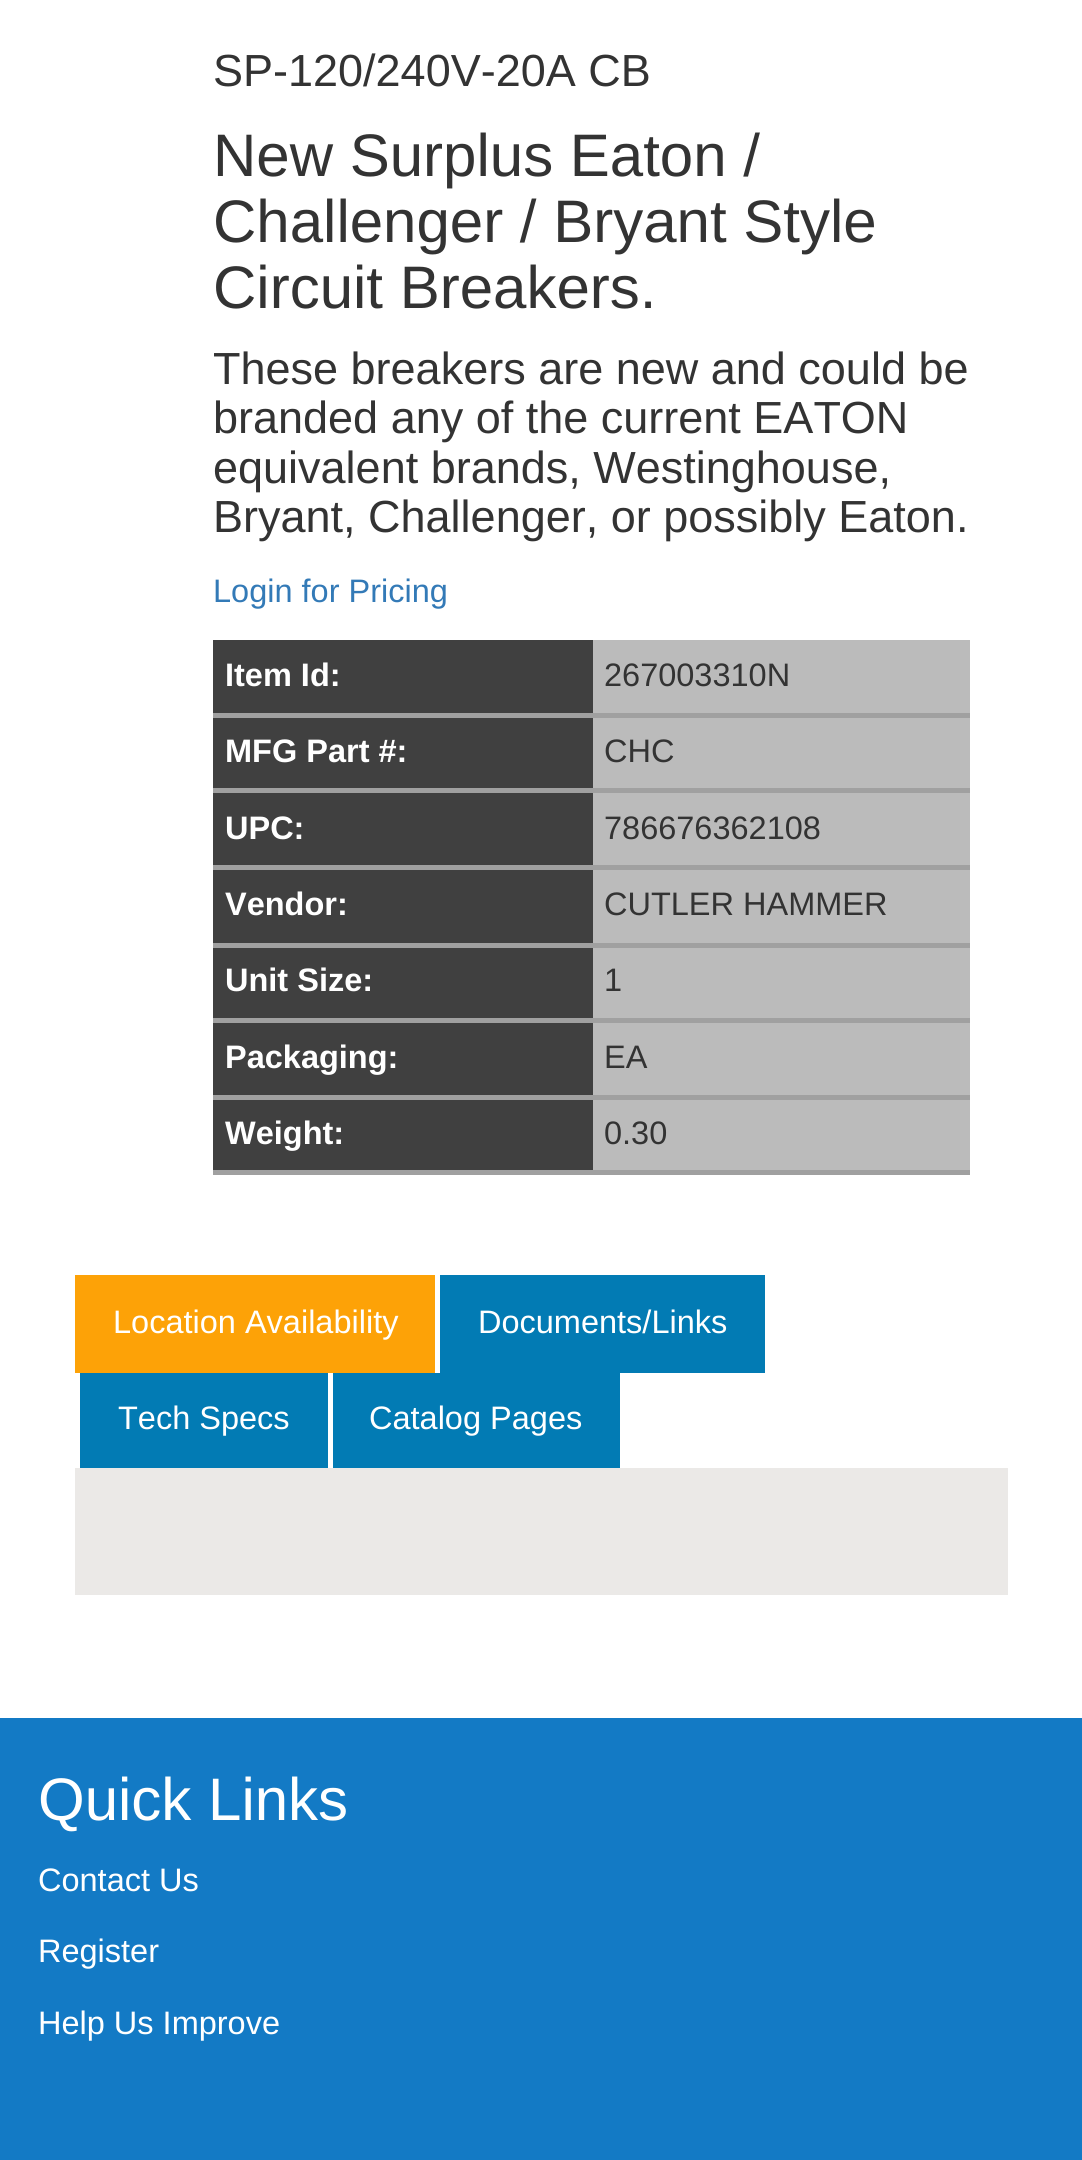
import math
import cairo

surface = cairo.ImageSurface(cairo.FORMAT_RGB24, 1082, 2160)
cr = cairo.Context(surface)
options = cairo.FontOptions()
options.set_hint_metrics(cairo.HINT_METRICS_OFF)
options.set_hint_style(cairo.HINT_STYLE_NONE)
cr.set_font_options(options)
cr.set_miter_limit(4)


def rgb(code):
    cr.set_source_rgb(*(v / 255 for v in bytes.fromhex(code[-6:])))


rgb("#ffffff")
cr.paint()
for x, y, w, h, color in [
    (213, 713, 757, 5, "#a0a0a0"),
    (213, 640, 380, 73, "#404040"),
    (593, 640, 377, 73, "#bbbbbb"),
    (213, 788, 757, 5, "#a0a0a0"),
    (213, 718, 380, 70, "#404040"),
    (593, 718, 377, 70, "#bbbbbb"),
    (213, 865, 757, 5, "#a0a0a0"),
    (213, 793, 380, 72, "#404040"),
    (593, 793, 377, 72, "#bbbbbb"),
    (213, 943, 757, 5, "#a0a0a0"),
    (213, 870, 380, 73, "#404040"),
    (593, 870, 377, 73, "#bbbbbb"),
    (213, 1018, 757, 5, "#a0a0a0"),
    (213, 948, 380, 70, "#404040"),
    (593, 948, 377, 70, "#bbbbbb"),
    (213, 1095, 757, 5, "#a0a0a0"),
    (213, 1023, 380, 72, "#404040"),
    (593, 1023, 377, 72, "#bbbbbb"),
    (213, 1170, 757, 5, "#a0a0a0"),
    (213, 1100, 380, 70, "#404040"),
    (593, 1100, 377, 70, "#bbbbbb"),
    (75, 1275, 360, 98, "#fda207"),
    (440, 1275, 325, 98, "#027bb4"),
    (80, 1373, 248, 95, "#027bb4"),
    (333, 1373, 287, 95, "#027bb4"),
    (75, 1468, 933, 127, "#ebe9e7"),
    (0, 1718, 1082, 442, "#137ac5"),
]:
    rgb(color)
    cr.rectangle(x, y, w, h)
    cr.fill()
cr.select_font_face("Liberation Sans")
cr.set_font_size(45)
rgb("#333333")
cr.move_to(213, 86)
cr.show_text("SP-120/240V-20A CB")
cr.set_font_size(60)
for x, y, s in [
    (213, 176, "New Surplus Eaton /"),
    (213, 242, "Challenger / Bryant Style"),
    (213, 308, "Circuit Breakers."),
]:
    cr.move_to(x, y)
    cr.show_text(s)
cr.set_font_size(45)
for x, y, s in [
    (213, 384, "These breakers are new and could be"),
    (213, 433, "branded any of the current EATON"),
    (213, 483, "equivalent brands, Westinghouse,"),
    (213, 532, "Bryant, Challenger, or possibly Eaton."),
]:
    cr.move_to(x, y)
    cr.show_text(s)
cr.set_font_size(32.5)
rgb("#337ab7")
cr.move_to(213, 602)
cr.show_text("Login for Pricing")
cr.select_font_face("Liberation Sans", cairo.FONT_SLANT_NORMAL, cairo.FONT_WEIGHT_BOLD)
rgb("#ffffff")
cr.move_to(225, 686)
cr.show_text("Item Id:")
cr.select_font_face("Liberation Sans")
rgb("#333333")
cr.move_to(604, 686)
cr.show_text("267003310N")
cr.select_font_face("Liberation Sans", cairo.FONT_SLANT_NORMAL, cairo.FONT_WEIGHT_BOLD)
rgb("#ffffff")
cr.move_to(225, 762)
cr.show_text("MFG Part #:")
cr.select_font_face("Liberation Sans")
rgb("#333333")
cr.move_to(604, 762)
cr.show_text("CHC")
cr.select_font_face("Liberation Sans", cairo.FONT_SLANT_NORMAL, cairo.FONT_WEIGHT_BOLD)
rgb("#ffffff")
cr.move_to(225, 839)
cr.show_text("UPC:")
cr.select_font_face("Liberation Sans")
rgb("#333333")
cr.move_to(604, 839)
cr.show_text("786676362108")
cr.select_font_face("Liberation Sans", cairo.FONT_SLANT_NORMAL, cairo.FONT_WEIGHT_BOLD)
rgb("#ffffff")
cr.move_to(225, 915)
cr.show_text("Vendor:")
cr.select_font_face("Liberation Sans")
rgb("#333333")
cr.move_to(604, 915)
cr.show_text("CUTLER HAMMER")
cr.select_font_face("Liberation Sans", cairo.FONT_SLANT_NORMAL, cairo.FONT_WEIGHT_BOLD)
rgb("#ffffff")
cr.move_to(225, 991)
cr.show_text("Unit Size:")
cr.select_font_face("Liberation Sans")
rgb("#333333")
cr.move_to(604, 991)
cr.show_text("1")
cr.select_font_face("Liberation Sans", cairo.FONT_SLANT_NORMAL, cairo.FONT_WEIGHT_BOLD)
rgb("#ffffff")
cr.move_to(225, 1068)
cr.show_text("Packaging:")
cr.select_font_face("Liberation Sans")
rgb("#333333")
cr.move_to(604, 1068)
cr.show_text("EA")
cr.select_font_face("Liberation Sans", cairo.FONT_SLANT_NORMAL, cairo.FONT_WEIGHT_BOLD)
rgb("#ffffff")
cr.move_to(225, 1144)
cr.show_text("Weight:")
cr.select_font_face("Liberation Sans")
rgb("#333333")
cr.move_to(604, 1144)
cr.show_text("0.30")
rgb("#ffffff")
for x, y, s in [
    (113, 1333, "Location Availability"),
    (478, 1333, "Documents/Links"),
    (118, 1429, "Tech Specs"),
    (369, 1429, "Catalog Pages"),
]:
    cr.move_to(x, y)
    cr.show_text(s)
cr.set_font_size(60)
cr.move_to(38, 1820)
cr.show_text("Quick Links")
cr.set_font_size(32.5)
for x, y, s in [
    (38, 1891, "Contact Us"),
    (38, 1962, "Register"),
    (38, 2034, "Help Us Improve"),
]:
    cr.move_to(x, y)
    cr.show_text(s)
surface.write_to_png("page.png")
